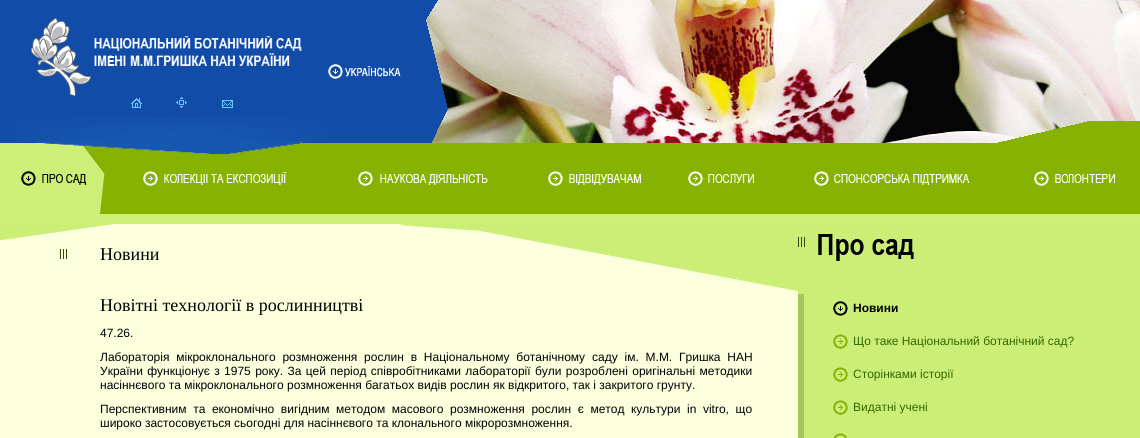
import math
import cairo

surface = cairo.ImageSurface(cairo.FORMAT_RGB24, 1140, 438)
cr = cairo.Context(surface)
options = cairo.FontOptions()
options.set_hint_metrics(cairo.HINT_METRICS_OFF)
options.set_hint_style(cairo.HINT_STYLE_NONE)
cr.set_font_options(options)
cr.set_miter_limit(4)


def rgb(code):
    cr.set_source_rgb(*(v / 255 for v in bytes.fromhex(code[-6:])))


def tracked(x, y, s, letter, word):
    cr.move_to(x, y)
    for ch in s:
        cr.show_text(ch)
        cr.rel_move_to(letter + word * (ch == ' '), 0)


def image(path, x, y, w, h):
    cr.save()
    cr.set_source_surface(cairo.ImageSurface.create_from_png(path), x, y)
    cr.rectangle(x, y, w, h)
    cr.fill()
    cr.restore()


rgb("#114ca9")
cr.paint()
image("img/1.png", 15, 118, 313, 24)
image("img/2.png", 31, 18, 271, 78)
image("img/3.png", 131, 98, 11, 10)
image("img/4.png", 176, 97, 11, 11)
image("img/5.png", 222, 100, 11, 8)
rgb("#86b202")
cr.rectangle(106, 143, 1034, 71)
cr.fill()
rgb("#ccef77")
cr.rectangle(0, 143, 81, 71)
cr.fill()
image("img/11.png", 81, 145, 25, 69)
image("img/6.png", 37, 141, 268, 14)
image("img/7.png", 328, 64, 73, 15)
image("img/8.png", 426, 0, 714, 143)
image("img/9.png", 998, 121, 142, 22)
image("img/10.png", 422, 0, 26, 143)
image("img/12.png", 21, 171, 65, 15)
image("img/13.png", 143, 171, 144, 15)
image("img/14.png", 358, 171, 130, 15)
image("img/15.png", 548, 171, 93, 15)
image("img/16.png", 688, 171, 66, 15)
image("img/17.png", 814, 171, 156, 15)
image("img/18.png", 1034, 171, 81, 15)
cr.rectangle(0, 214, 1140, 10)
cr.fill()
rgb("#fcffde")
cr.rectangle(0, 224, 798, 214)
cr.fill()
image("img/19.png", 0, 224, 113, 17)
image("img/20.png", 398, 224, 400, 67)
image("img/21.png", 60, 249, 7, 10)
rgb("#cbef76")
cr.rectangle(798, 224, 342, 70)
cr.fill()
image("img/22.png", 798, 237, 7, 10)
image("img/23.png", 818, 234, 96, 27)
cr.rectangle(804, 294, 336, 144)
cr.fill()
rgb("#a6c55e")
cr.rectangle(798, 294, 6, 144)
cr.fill()
image("img/24.png", 833, 301, 15, 15)
image("img/25.png", 833, 334, 15, 15)
image("img/25.png", 833, 367, 15, 15)
image("img/25.png", 833, 400, 15, 15)
image("img/26.png", 833, 433, 14, 5)
cr.select_font_face("Liberation Serif")
cr.set_font_size(18)
rgb("#000000")
cr.move_to(100, 260)
cr.show_text("Новини")
cr.move_to(100, 311)
cr.show_text("Новітні технології в рослинництві")
cr.select_font_face("Liberation Sans")
cr.set_font_size(12)
cr.move_to(100, 337)
cr.show_text("47.26.")
tracked(100, 361, "Лабораторія мікроклонального розмноження рослин в Національному ботанічному саду ім. М.М. Гришка НАН", 0, 3.5)
tracked(100, 375, "України функціонує з 1975 року. За цей період співробітниками лабораторії були розроблені оригінальні методики", 0, 1)
cr.move_to(100, 389)
cr.show_text("насіннєвого та мікроклонального розмноження багатьох видів рослин як відкритого, так і закритого грунту.")
tracked(100, 413, "Перспективним та економічно вигідним методом масового розмноження рослин є метод культури in vitro, що", 0, 3.25)
cr.move_to(100, 427)
cr.show_text("широко застосовується сьогодні для насіннєвого та клонального мікророзмноження.")
cr.select_font_face("Liberation Sans", cairo.FONT_SLANT_NORMAL, cairo.FONT_WEIGHT_BOLD)
cr.move_to(853, 312)
cr.show_text("Новини")
cr.select_font_face("Liberation Sans")
rgb("#336600")
for x, y, s in [
    (853, 345, "Що таке Національний ботанічний сад?"),
    (853, 378, "Сторінками історії"),
    (853, 411, "Видатні учені"),
]:
    cr.move_to(x, y)
    cr.show_text(s)
surface.write_to_png("page.png")
